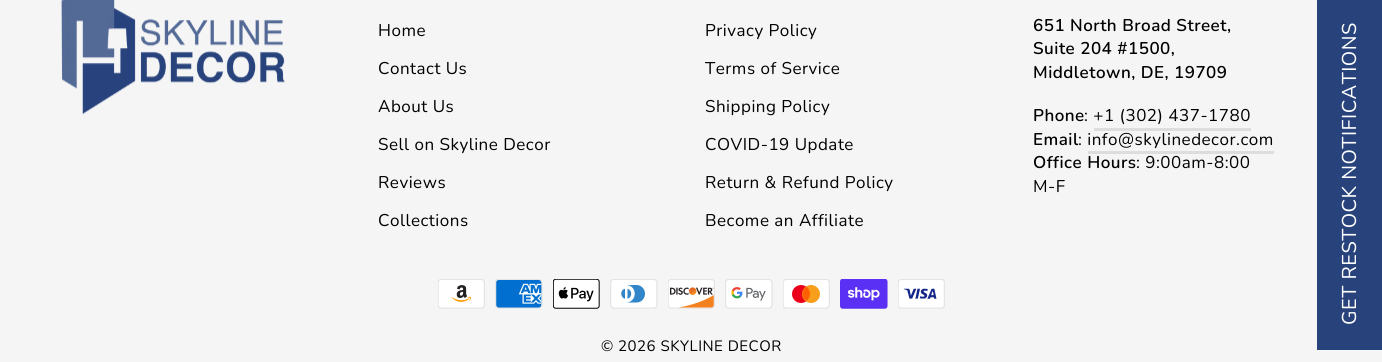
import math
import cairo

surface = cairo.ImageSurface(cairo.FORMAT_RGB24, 1382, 362)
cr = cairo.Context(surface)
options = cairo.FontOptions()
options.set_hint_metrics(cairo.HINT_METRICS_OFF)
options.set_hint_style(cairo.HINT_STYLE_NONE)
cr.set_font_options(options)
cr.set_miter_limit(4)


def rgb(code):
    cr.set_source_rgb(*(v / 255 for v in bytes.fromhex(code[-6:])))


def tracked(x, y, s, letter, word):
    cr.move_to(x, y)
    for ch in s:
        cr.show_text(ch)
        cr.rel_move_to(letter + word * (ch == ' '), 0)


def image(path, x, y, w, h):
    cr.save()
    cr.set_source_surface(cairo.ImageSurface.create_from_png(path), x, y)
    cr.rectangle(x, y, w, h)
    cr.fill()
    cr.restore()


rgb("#f5f5f5")
cr.paint()
image("img/1.png", 61, 0, 224, 115)
rgb("#dddddd")
cr.rectangle(1094, 128, 157, 3)
cr.fill()
cr.rectangle(1088, 151, 186, 3)
cr.fill()
image("img/2.png", 438, 279, 47, 30)
image("img/3.png", 495, 279, 48, 30)
image("img/4.png", 553, 279, 47, 30)
image("img/5.png", 610, 279, 48, 30)
image("img/6.png", 668, 279, 47, 30)
image("img/7.png", 725, 279, 48, 30)
image("img/8.png", 783, 279, 47, 30)
image("img/9.png", 840, 279, 48, 30)
image("img/10.png", 898, 279, 47, 30)
rgb("#28437c")
cr.rectangle(1317, 0, 65, 350)
cr.fill()
cr.select_font_face("Nunito")
cr.set_font_size(17)
rgb("#000000")
for x, y, s in [
    (378, 36, "Home"),
    (378, 74, "Contact Us"),
    (378, 112, "About Us"),
    (378, 150, "Sell on Skyline Decor"),
    (378, 188, "Reviews"),
    (378, 226, "Collections"),
    (705, 36, "Privacy Policy"),
    (705, 74, "Terms of Service"),
    (705, 112, "Shipping Policy"),
    (705, 150, "COVID-19 Update"),
    (705, 188, "Return & Refund Policy"),
    (705, 226, "Become an Affiliate"),
]:
    tracked(x, y, s, 0.5, 0)
cr.select_font_face("Nunito SemiBold")
for x, y, s in [
    (1033, 31, "651 North Broad Street,"),
    (1033, 54, "Suite 204 #1500,"),
    (1033, 78, "Middletown, DE, 19709"),
    (1033, 121, "Phone"),
]:
    tracked(x, y, s, 0.5, 0)
cr.select_font_face("Nunito")
tracked(1084, 121, ": +1 (302) 437-1780", 0.5, 0)
cr.select_font_face("Nunito SemiBold")
tracked(1033, 145, "Email", 0.5, 0)
cr.select_font_face("Nunito")
tracked(1078, 145, ": info@skylinedecor.com", 0.5, 0)
cr.select_font_face("Nunito SemiBold")
tracked(1033, 168, "Office Hours", 0.5, 0)
cr.select_font_face("Nunito")
tracked(1136, 168, ": 9:00am-8:00", 0.5, 0)
tracked(1033, 192, "M-F", 0.5, 0)
cr.set_font_size(15)
tracked(601, 351, "© 2026 SKYLINE DECOR", 0.5, 0)
cr.set_font_size(20)
rgb("#ffffff")
cr.save()
cr.translate(1356, 325)
cr.rotate(-90 * math.pi / 180)
tracked(0, 0, "GET RESTOCK NOTIFICATIONS", 0.5, 0)
cr.restore()
surface.write_to_png("page.png")
